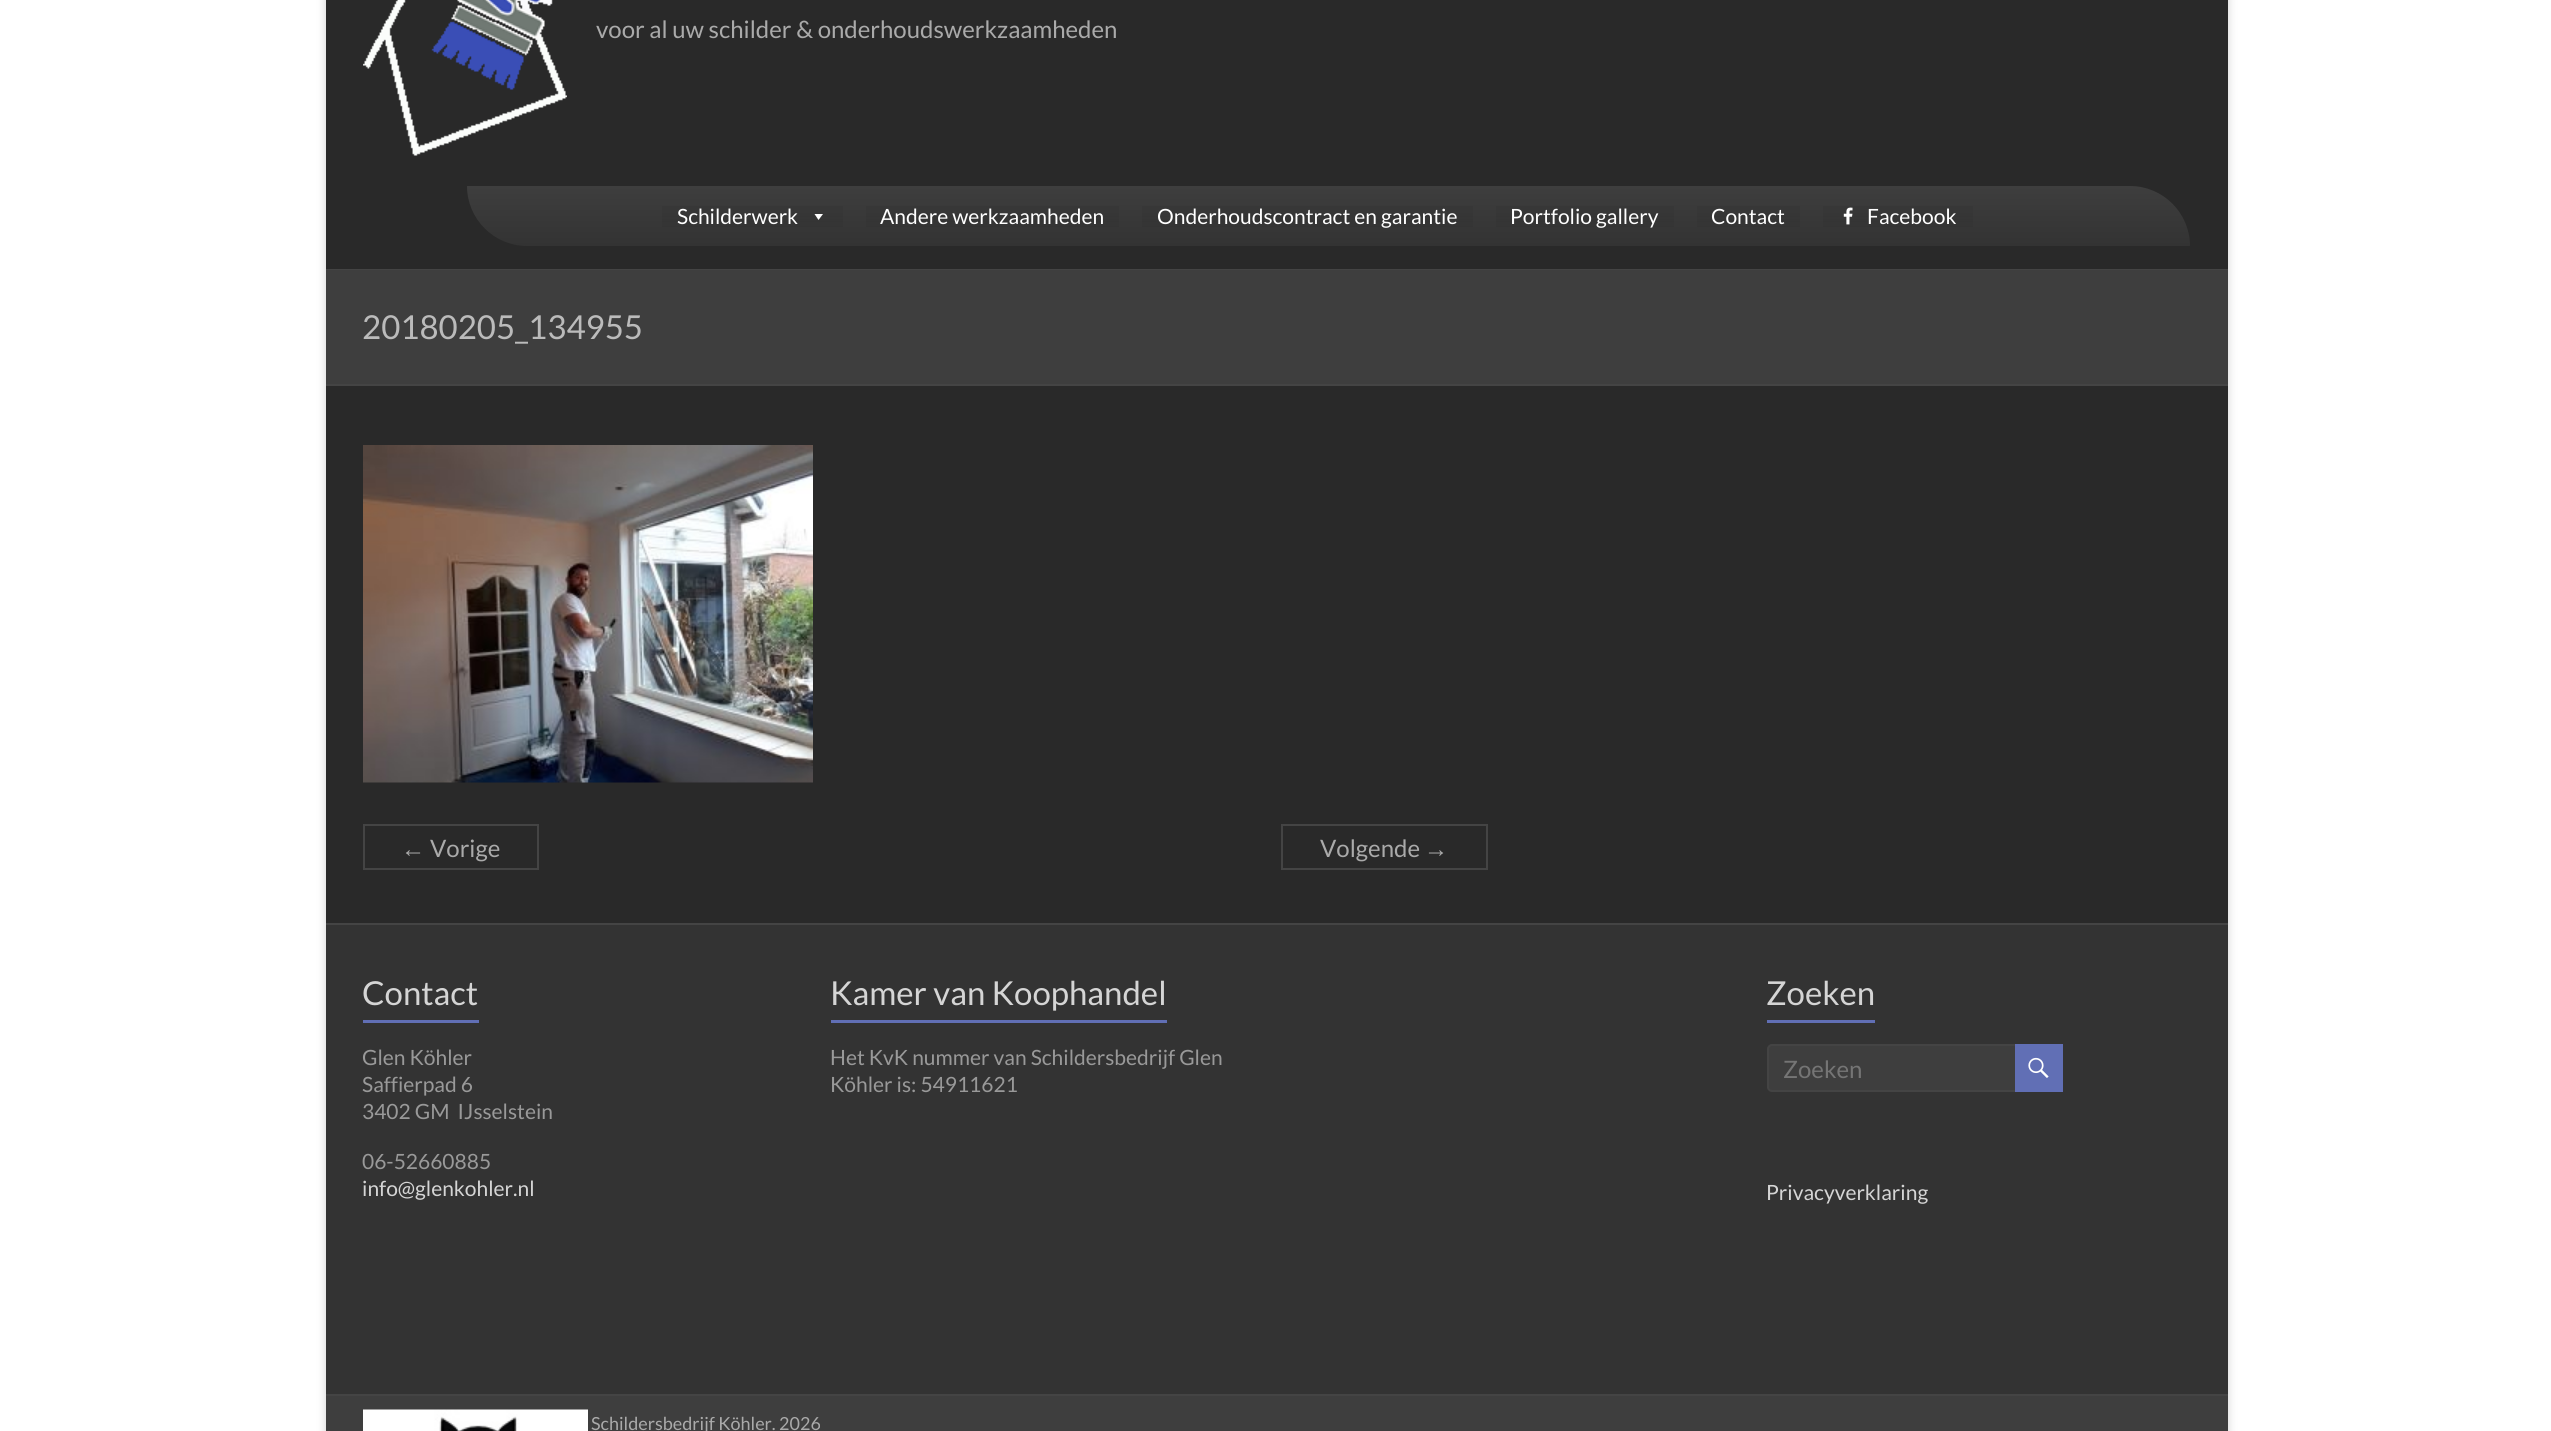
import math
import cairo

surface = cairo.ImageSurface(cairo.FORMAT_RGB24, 2551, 1431)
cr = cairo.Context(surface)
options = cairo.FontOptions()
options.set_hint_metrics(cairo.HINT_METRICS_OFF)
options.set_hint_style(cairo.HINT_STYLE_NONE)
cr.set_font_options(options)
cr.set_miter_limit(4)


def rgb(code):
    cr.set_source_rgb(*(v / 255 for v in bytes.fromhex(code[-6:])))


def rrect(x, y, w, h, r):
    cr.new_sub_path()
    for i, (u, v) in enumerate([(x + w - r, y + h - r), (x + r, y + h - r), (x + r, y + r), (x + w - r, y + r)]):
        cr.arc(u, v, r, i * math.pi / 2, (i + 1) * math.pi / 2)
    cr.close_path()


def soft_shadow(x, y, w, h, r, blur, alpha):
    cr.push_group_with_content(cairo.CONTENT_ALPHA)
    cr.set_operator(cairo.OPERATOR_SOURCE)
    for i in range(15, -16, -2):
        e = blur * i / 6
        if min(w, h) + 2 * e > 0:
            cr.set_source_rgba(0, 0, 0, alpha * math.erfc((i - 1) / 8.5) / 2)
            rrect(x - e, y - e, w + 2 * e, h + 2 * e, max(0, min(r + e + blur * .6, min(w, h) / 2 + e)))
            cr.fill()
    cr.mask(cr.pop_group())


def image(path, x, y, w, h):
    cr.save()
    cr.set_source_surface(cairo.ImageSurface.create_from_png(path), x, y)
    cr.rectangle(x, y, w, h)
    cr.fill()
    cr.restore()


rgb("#ffffff")
cr.paint()
rgb("#646464")
soft_shadow(326, -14, 1902, 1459, 0, 4.5, 0.3)
rgb("#292929")
cr.rectangle(326, 0, 1902, 923)
cr.fill()
rgb("#444444")
cr.rectangle(326, 269, 1902, 1)
cr.fill()
image("img/1.png", 363, 0, 204, 156)
gradient = cairo.LinearGradient(1328, 186, 1328, 246)
gradient.add_color_stop_rgba(0, 0.243, 0.243, 0.243, 1)
gradient.add_color_stop_rgba(1, 0.2, 0.2, 0.2, 1)
cr.set_source(gradient)
cr.new_path()
cr.move_to(467, 186)
cr.line_to(2130, 186)
cr.curve_to(2163, 186, 2190, 213, 2190, 246)
cr.line_to(527, 246)
cr.curve_to(494, 246, 467, 219, 467, 186)
cr.close_path()
cr.fill()
gradient = cairo.LinearGradient(752, 186, 752, 246)
gradient.add_color_stop_rgba(0, 0.2, 0.2, 0.2, 0)
gradient.add_color_stop_rgba(1, 0.2, 0.2, 0.2, 1)
cr.set_source(gradient)
cr.rectangle(662, 206, 181, 21)
cr.fill()
rgb("#ffffff")
cr.new_path()
cr.move_to(823, 214)
cr.line_to(818.5, 220)
cr.line_to(814.5, 214)
cr.close_path()
cr.fill()
gradient = cairo.LinearGradient(992, 186, 992, 246)
gradient.add_color_stop_rgba(0, 0.2, 0.2, 0.2, 0)
gradient.add_color_stop_rgba(1, 0.2, 0.2, 0.2, 1)
cr.set_source(gradient)
cr.rectangle(866, 206, 253, 21)
cr.fill()
gradient = cairo.LinearGradient(1307, 186, 1307, 246)
gradient.add_color_stop_rgba(0, 0.2, 0.2, 0.2, 0)
gradient.add_color_stop_rgba(1, 0.2, 0.2, 0.2, 1)
cr.set_source(gradient)
cr.rectangle(1142, 206, 331, 21)
cr.fill()
gradient = cairo.LinearGradient(1585, 186, 1585, 246)
gradient.add_color_stop_rgba(0, 0.2, 0.2, 0.2, 0)
gradient.add_color_stop_rgba(1, 0.2, 0.2, 0.2, 1)
cr.set_source(gradient)
cr.rectangle(1496, 206, 178, 21)
cr.fill()
gradient = cairo.LinearGradient(1748, 186, 1748, 246)
gradient.add_color_stop_rgba(0, 0.2, 0.2, 0.2, 0)
gradient.add_color_stop_rgba(1, 0.2, 0.2, 0.2, 1)
cr.set_source(gradient)
cr.rectangle(1697, 206, 103, 21)
cr.fill()
gradient = cairo.LinearGradient(1898, 186, 1898, 246)
gradient.add_color_stop_rgba(0, 0.2, 0.2, 0.2, 0)
gradient.add_color_stop_rgba(1, 0.2, 0.2, 0.2, 1)
cr.set_source(gradient)
cr.rectangle(1823, 206, 150, 21)
cr.fill()
image("img/2.png", 1843, 207, 10, 18)
rgb("#3e3e3e")
cr.rectangle(326, 270, 1902, 114)
cr.fill()
rgb("#444444")
cr.rectangle(326, 384, 1902, 2)
cr.fill()
image("img/3.png", 363, 445, 450, 338)
cr.rectangle(364, 825, 174, 44)
cr.stroke()
cr.rectangle(1282, 825, 205, 44)
cr.stroke()
for x, y, w, h, color in [
    (326, 925, 1902, 469, "#333333"),
    (326, 923, 1902, 2, "#444444"),
    (363, 1020, 116, 3, "#616fb5"),
    (831, 1020, 336, 3, "#616fb5"),
    (1767, 1020, 108, 3, "#616fb5"),
]:
    rgb(color)
    cr.rectangle(x, y, w, h)
    cr.fill()
rgb("#3e3e3e")
rrect(1768, 1045, 252, 46, 4)
cr.fill_preserve()
rgb("#444444")
cr.stroke()
rgb("#616fb5")
cr.rectangle(2015, 1044, 48, 48)
cr.fill()
image("img/4.png", 2028, 1057, 21, 21)
rgb("#3e3e3e")
cr.rectangle(326, 1396, 1902, 35)
cr.fill()
rgb("#444444")
cr.rectangle(326, 1394, 1902, 2)
cr.fill()
image("img/5.png", 363, 1409, 225, 22)
cr.select_font_face("Lato")
cr.set_font_size(24)
rgb("#aaaaaa")
cr.move_to(596, 38)
cr.show_text("voor al uw schilder & onderhoudswerkzaamheden")
cr.set_font_size(21)
rgb("#ffffff")
for x, y, s in [
    (677, 224, "Schilderwerk"),
    (880, 224, "Andere werkzaamheden"),
    (1157, 224, "Onderhoudscontract en garantie"),
    (1510, 224, "Portfolio gallery"),
    (1711, 224, "Contact"),
    (1867, 224, "Facebook"),
]:
    cr.move_to(x, y)
    cr.show_text(s)
cr.set_font_size(33)
rgb("#bbbbbb")
cr.move_to(362, 339)
cr.show_text("20180205_134955")
cr.select_font_face("Liberation Sans")
cr.set_font_size(24)
rgb("#aaaaaa")
cr.move_to(401, 857)
cr.show_text("←")
cr.select_font_face("Lato")
cr.move_to(430, 857)
cr.show_text("Vorige")
cr.move_to(1320, 857)
cr.show_text("Volgende")
cr.select_font_face("Liberation Sans")
cr.move_to(1424, 857)
cr.show_text("→")
cr.select_font_face("Lato")
cr.set_font_size(33)
rgb("#d5d5d5")
cr.move_to(362, 1005)
cr.show_text("Contact")
cr.set_font_size(21)
rgb("#999999")
for x, y, s in [
    (362, 1065, "Glen Köhler"),
    (362, 1092, "Saffierpad 6"),
    (362, 1119, "3402 GM  IJsselstein"),
    (362, 1169, "06-52660885"),
]:
    cr.move_to(x, y)
    cr.show_text(s)
rgb("#d5d5d5")
cr.move_to(362, 1196)
cr.show_text("info@glenkohler.nl")
cr.set_font_size(33)
cr.move_to(830, 1005)
cr.show_text("Kamer van Koophandel")
cr.set_font_size(21)
rgb("#999999")
cr.move_to(830, 1065)
cr.show_text("Het KvK nummer van Schildersbedrijf Glen")
cr.move_to(830, 1092)
cr.show_text("Köhler is: 54911621")
cr.set_font_size(33)
rgb("#d5d5d5")
cr.move_to(1766, 1005)
cr.show_text("Zoeken")
cr.set_font_size(24)
rgb("#757575")
cr.move_to(1783, 1078)
cr.show_text("Zoeken")
cr.set_font_size(21)
rgb("#d5d5d5")
cr.move_to(1766, 1200)
cr.show_text("Privacyverklaring")
cr.set_font_size(18)
rgb("#aaaaaa")
cr.move_to(591, 1430)
cr.show_text("Schildersbedrijf Köhler. 2026")
surface.write_to_png("page.png")
